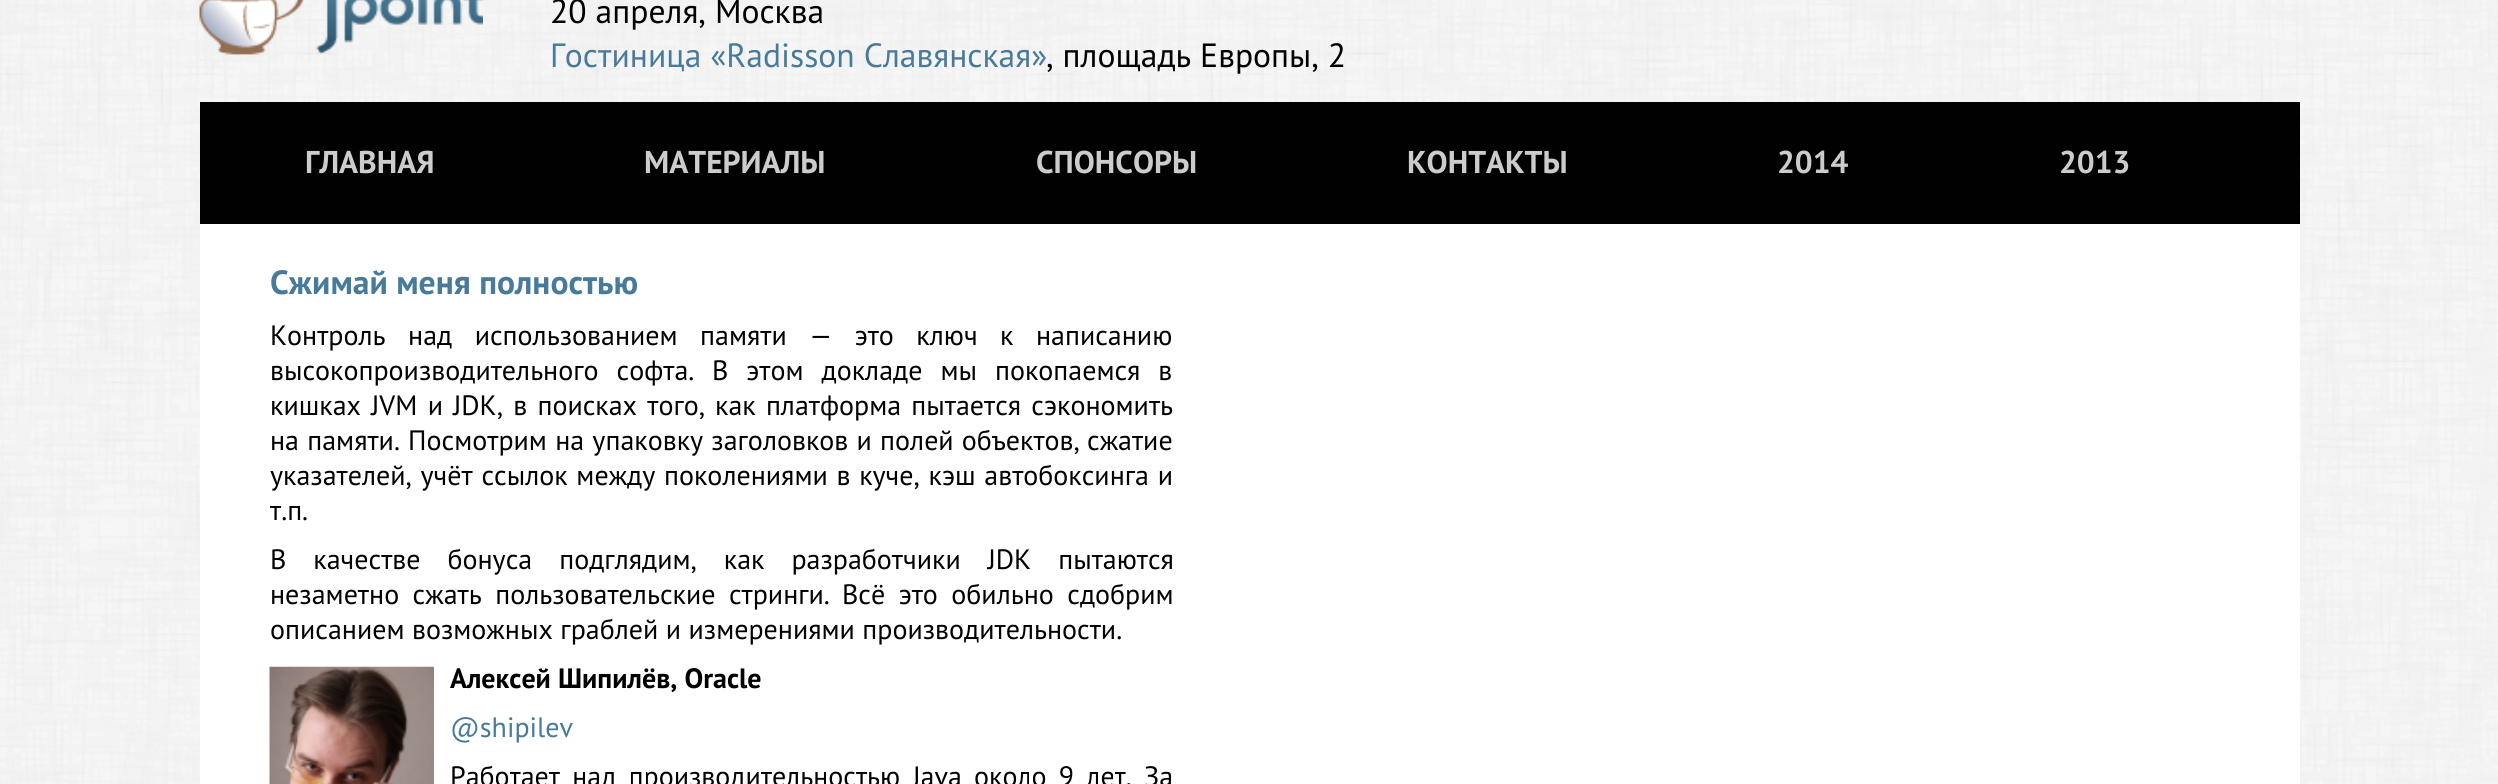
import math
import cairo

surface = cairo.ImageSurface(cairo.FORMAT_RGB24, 2498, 784)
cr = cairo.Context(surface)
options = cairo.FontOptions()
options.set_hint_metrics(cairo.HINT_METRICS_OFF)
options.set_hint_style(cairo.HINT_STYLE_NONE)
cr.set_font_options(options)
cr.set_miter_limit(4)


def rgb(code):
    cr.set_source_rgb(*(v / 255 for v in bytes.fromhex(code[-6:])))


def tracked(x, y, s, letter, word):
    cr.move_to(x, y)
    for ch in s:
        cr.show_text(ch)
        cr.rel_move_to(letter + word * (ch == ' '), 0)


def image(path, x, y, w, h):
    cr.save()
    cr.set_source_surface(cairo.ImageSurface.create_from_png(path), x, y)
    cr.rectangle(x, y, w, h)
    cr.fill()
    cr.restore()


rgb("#ffffff")
cr.paint()
image("img/1.png", 0, 0, 2498, 784)
image("img/2.png", 199, 0, 284, 55)
rgb("#010101")
cr.rectangle(200, 102, 2100, 122)
cr.fill()
rgb("#ffffff")
cr.rectangle(200, 224, 2100, 560)
cr.fill()
image("img/3.png", 269, 666, 165, 118)
cr.select_font_face("PT Sans")
cr.set_font_size(33.6)
rgb("#000000")
cr.move_to(550, 23)
cr.show_text("20 апреля, Москва")
rgb("#487a9a")
cr.move_to(550, 67)
cr.show_text("Гостиница «Radisson Славянская»")
rgb("#000000")
cr.move_to(1046, 67)
cr.show_text(", площадь Европы, 2")
cr.select_font_face("PT Sans", cairo.FONT_SLANT_NORMAL, cairo.FONT_WEIGHT_BOLD)
cr.set_font_size(31.5)
rgb("#cccccc")
for x, y, s in [
    (305, 173, "ГЛАВНАЯ"),
    (644, 173, "МАТЕРИАЛЫ"),
    (1036, 173, "СПОНСОРЫ"),
    (1407, 173, "КОНТАКТЫ"),
    (1777, 173, "2014"),
    (2059, 173, "2013"),
]:
    cr.move_to(x, y)
    cr.show_text(s)
cr.set_font_size(33.6)
rgb("#487a9a")
cr.move_to(270, 294)
cr.show_text("Сжимай меня полностью")
cr.select_font_face("PT Sans")
cr.set_font_size(28)
rgb("#000000")
tracked(270, 345, "Контроль над использованием памяти — это ключ к написанию", 0, 15)
tracked(270, 380, "высокопроизводительного софта.", 0, 10.5)
tracked(712, 380, "В этом докладе мы покопаемся в", 0, 10.5)
tracked(270, 415, "кишках JVM и JDK, в поисках того,", 0, 2.75)
tracked(715, 415, "как платформа пытается сэкономить", 0, 2.75)
tracked(270, 450, "на памяти. Посмотрим на упаковку заголовков и полей объектов,", 0, 0.75)
cr.move_to(1087, 450)
cr.show_text("сжатие")
tracked(270, 485, "указателей, учёт ссылок между поколениями в куче, кэш автобоксинга и", 0, 1.25)
cr.move_to(270, 520)
cr.show_text("т.п.")
tracked(270, 569, "В качестве бонуса подглядим, как разработчики JDK пытаются", 0, 19.5)
tracked(270, 604, "незаметно сжать пользовательские стринги.", 0, 6)
tracked(842, 604, "Всё это обильно сдобрим", 0, 6)
cr.move_to(270, 639)
cr.show_text("описанием возможных граблей и измерениями производительности.")
cr.select_font_face("PT Sans", cairo.FONT_SLANT_NORMAL, cairo.FONT_WEIGHT_BOLD)
cr.move_to(450, 688)
cr.show_text("Алексей Шипилёв, Oracle")
cr.select_font_face("PT Sans")
rgb("#487a9a")
cr.move_to(450, 737)
cr.show_text("@shipilev")
rgb("#000000")
tracked(450, 786, "Работает над производительностью Java около 9 лет. За", 0, 4.75)
surface.write_to_png("page.png")
